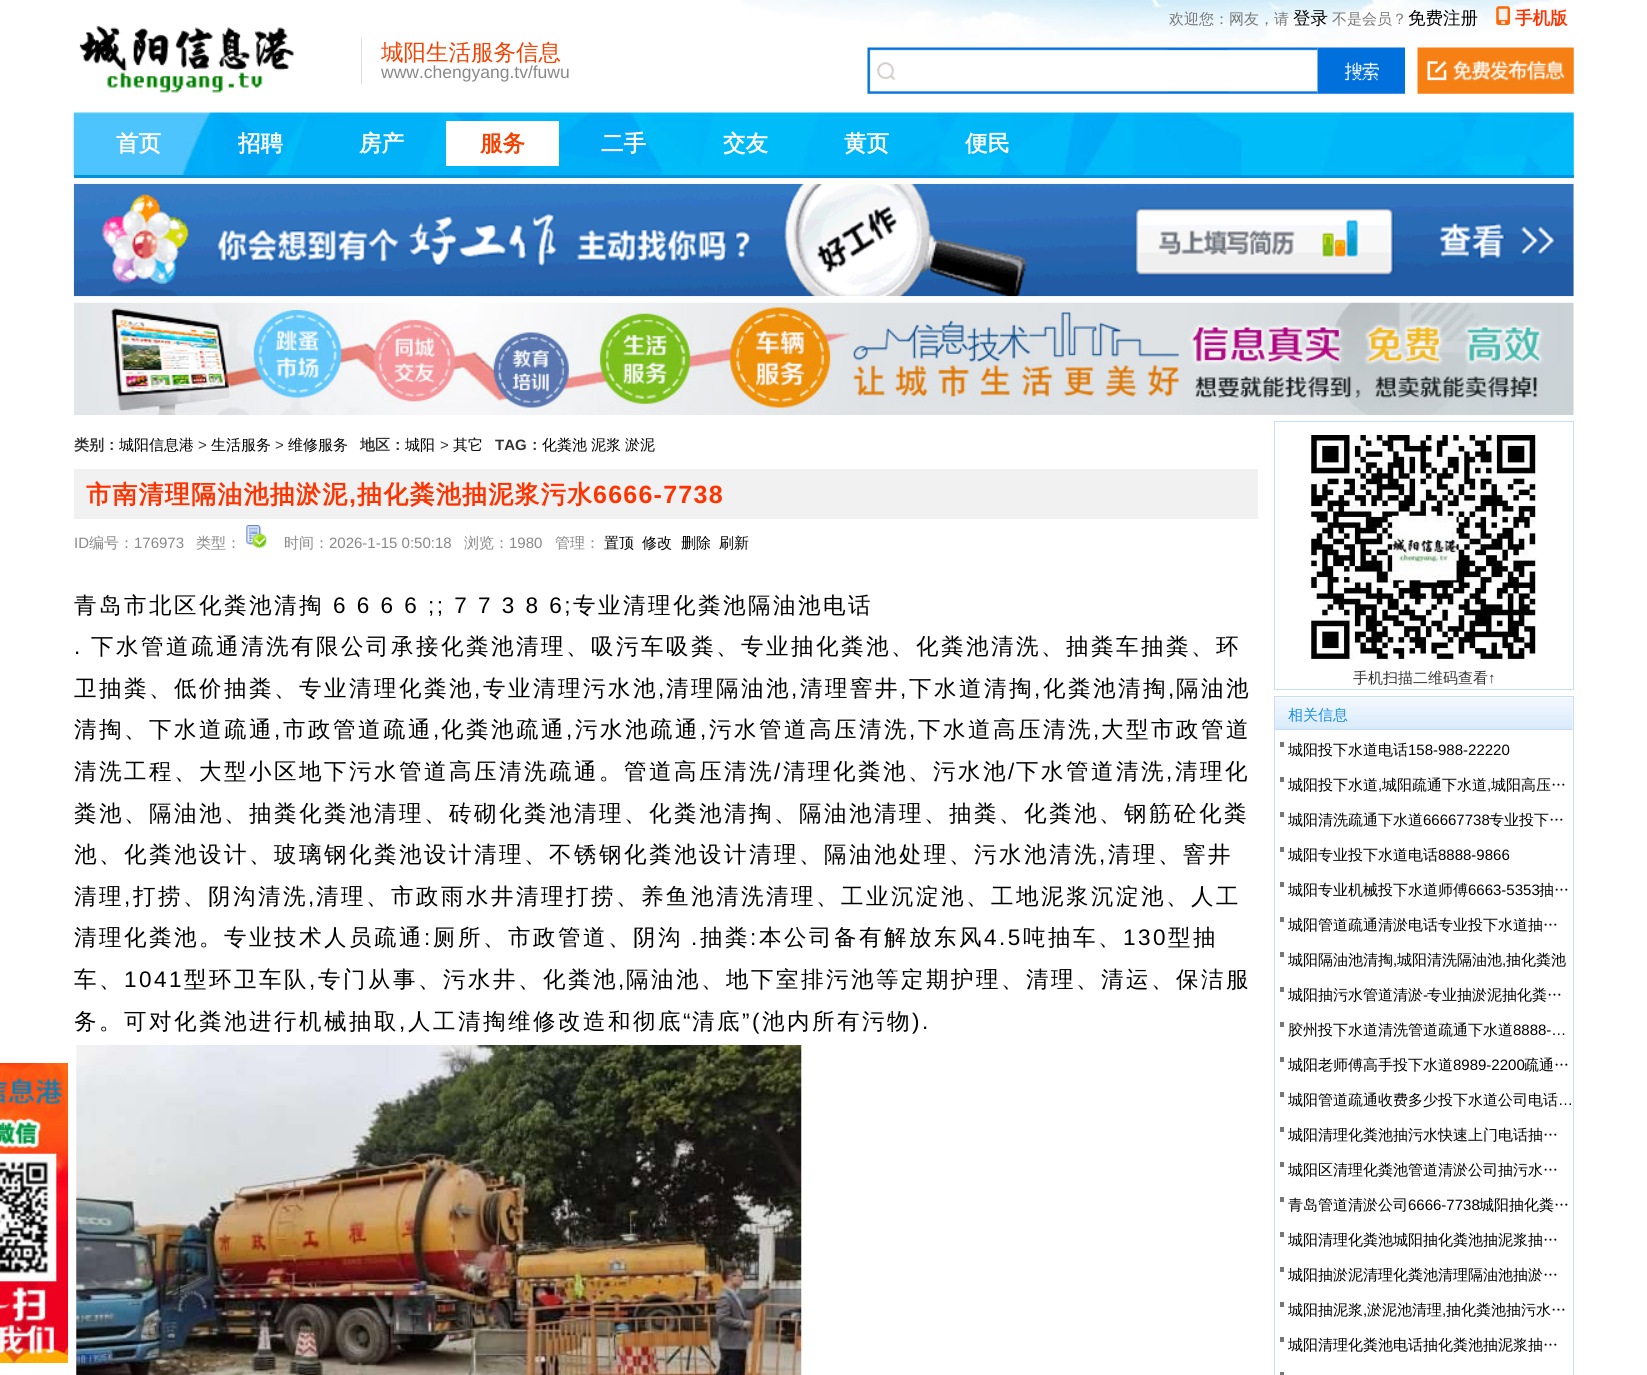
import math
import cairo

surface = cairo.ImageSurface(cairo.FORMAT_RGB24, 1647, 1375)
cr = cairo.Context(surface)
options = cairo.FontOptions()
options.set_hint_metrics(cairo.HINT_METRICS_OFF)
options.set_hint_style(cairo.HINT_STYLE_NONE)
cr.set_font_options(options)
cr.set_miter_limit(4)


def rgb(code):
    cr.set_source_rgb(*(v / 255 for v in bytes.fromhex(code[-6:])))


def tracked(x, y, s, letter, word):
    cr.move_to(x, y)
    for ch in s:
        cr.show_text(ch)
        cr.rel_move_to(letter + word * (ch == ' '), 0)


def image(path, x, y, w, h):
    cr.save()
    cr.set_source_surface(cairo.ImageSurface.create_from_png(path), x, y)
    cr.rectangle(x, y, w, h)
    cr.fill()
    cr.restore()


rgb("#ffffff")
cr.paint()
image("img/1.png", 742, 0, 812, 44)
image("img/2.png", 1496, 6, 14, 19)
image("img/3.png", 867, 47, 451, 47)
image("img/4.png", 1317, 47, 88, 47)
image("img/5.png", 1417, 47, 157, 47)
image("img/6.png", 79, 26, 215, 67)
rgb("#dddddd")
cr.rectangle(361, 38, 1, 46)
cr.fill()
image("img/7.png", 0, 1063, 68, 300)
image("img/8.png", 73, 112, 1501, 63)
rgb("#0092db")
cr.rectangle(74, 175, 1500, 3)
cr.fill()
rgb("#ffffff")
cr.rectangle(446, 121, 113, 45)
cr.fill()
image("img/9.png", 73, 183, 1501, 114)
image("img/10.png", 74, 302, 1500, 113)
rgb("#f1f1f1")
cr.rectangle(74, 469, 1184, 50)
cr.fill()
image("img/11.png", 246, 525, 21, 23)
image("img/12.png", 76, 1045, 726, 330)
cr.rectangle(1274.5, 421.5, 299, 268)
rgb("#c6def8")
cr.set_line_width(1)
cr.stroke()
image("img/13.png", 1311, 435, 226, 225)
cr.rectangle(1274.5, 696.5, 299, 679)
cr.stroke()
image("img/14.png", 1275, 697, 298, 33)
for x, y, w, h, color in [
    (1280, 742, 4, 5, "#757575"),
    (1280, 777, 4, 5, "#757575"),
    (1280, 812, 4, 5, "#757575"),
    (1280, 847, 4, 5, "#757575"),
    (1280, 882, 4, 5, "#757575"),
    (1280, 917, 4, 5, "#757575"),
    (1280, 952, 4, 5, "#757575"),
    (1280, 987, 4, 5, "#757575"),
    (1280, 1022, 4, 5, "#757575"),
    (1280, 1057, 4, 5, "#757575"),
    (1280, 1092, 4, 5, "#757575"),
    (1280, 1127, 4, 5, "#757575"),
    (1280, 1162, 4, 5, "#757575"),
    (1280, 1197, 4, 5, "#757575"),
    (1280, 1232, 4, 5, "#757575"),
    (1280, 1267, 4, 5, "#757575"),
    (1280, 1302, 4, 5, "#757575"),
    (1280, 1337, 4, 5, "#757575"),
    (1280, 1372, 4, 3, "#757575"),
]:
    rgb(color)
    cr.rectangle(x, y, w, h)
    cr.fill()
cr.select_font_face("WenQuanYi Zen Hei Medium")
cr.set_font_size(15)
rgb("#777777")
cr.move_to(1169, 24)
cr.show_text("欢迎您：网友，请")
cr.set_font_size(17.5)
rgb("#000000")
cr.move_to(1293, 24)
cr.show_text("登录")
cr.set_font_size(15)
rgb("#777777")
cr.move_to(1332, 24)
cr.show_text("不是会员？")
cr.set_font_size(17.5)
rgb("#000000")
cr.move_to(1408, 24)
cr.show_text("免费注册")
cr.select_font_face("WenQuanYi Zen Hei", cairo.FONT_SLANT_NORMAL, cairo.FONT_WEIGHT_BOLD)
rgb("#ff3300")
cr.move_to(1515, 24)
cr.show_text("手机版")
cr.select_font_face("WenQuanYi Zen Hei Medium")
cr.set_font_size(22.5)
rgb("#f54100")
cr.move_to(381, 60)
cr.show_text("城阳生活服务信息")
cr.select_font_face("Liberation Sans")
cr.set_font_size(17.5)
rgb("#888888")
cr.move_to(381, 78)
cr.show_text("www.chengyang.tv/fuwu")
cr.select_font_face("WenQuanYi Zen Hei", cairo.FONT_SLANT_NORMAL, cairo.FONT_WEIGHT_BOLD)
cr.set_font_size(22.5)
rgb("#ffffff")
for x, y, s in [
    (116, 151, "首页"),
    (238, 151, "招聘"),
    (359, 151, "房产"),
]:
    cr.move_to(x, y)
    cr.show_text(s)
rgb("#f54100")
cr.move_to(480, 151)
cr.show_text("服务")
rgb("#ffffff")
for x, y, s in [
    (601, 151, "二手"),
    (723, 151, "交友"),
    (844, 151, "黄页"),
    (965, 151, "便民"),
]:
    cr.move_to(x, y)
    cr.show_text(s)
cr.set_font_size(15)
rgb("#333333")
cr.move_to(74, 450)
cr.show_text("类别：")
cr.select_font_face("WenQuanYi Zen Hei Medium")
rgb("#000000")
cr.move_to(119, 450)
cr.show_text("城阳信息港")
cr.select_font_face("Liberation Sans")
rgb("#333333")
cr.move_to(198, 450)
cr.show_text(">")
cr.select_font_face("WenQuanYi Zen Hei Medium")
rgb("#000000")
cr.move_to(211, 450)
cr.show_text("生活服务")
cr.select_font_face("Liberation Sans")
rgb("#333333")
cr.move_to(275, 450)
cr.show_text(">")
cr.select_font_face("WenQuanYi Zen Hei Medium")
rgb("#000000")
cr.move_to(288, 450)
cr.show_text("维修服务")
cr.select_font_face("WenQuanYi Zen Hei", cairo.FONT_SLANT_NORMAL, cairo.FONT_WEIGHT_BOLD)
rgb("#333333")
cr.move_to(360, 450)
cr.show_text("地区：")
cr.select_font_face("WenQuanYi Zen Hei Medium")
rgb("#000000")
cr.move_to(405, 450)
cr.show_text("城阳")
cr.select_font_face("Liberation Sans")
rgb("#333333")
cr.move_to(440, 450)
cr.show_text(">")
cr.select_font_face("WenQuanYi Zen Hei Medium")
rgb("#000000")
cr.move_to(453, 450)
cr.show_text("其它")
cr.select_font_face("Liberation Sans", cairo.FONT_SLANT_NORMAL, cairo.FONT_WEIGHT_BOLD)
rgb("#333333")
cr.move_to(495, 450)
cr.show_text("TAG")
cr.select_font_face("WenQuanYi Zen Hei", cairo.FONT_SLANT_NORMAL, cairo.FONT_WEIGHT_BOLD)
cr.move_to(527, 450)
cr.show_text("：")
cr.select_font_face("WenQuanYi Zen Hei Medium")
rgb("#000000")
for x, y, s in [
    (542, 450, "化粪池"),
    (591, 450, "泥浆"),
    (625, 450, "淤泥"),
]:
    cr.move_to(x, y)
    cr.show_text(s)
cr.select_font_face("WenQuanYi Zen Hei", cairo.FONT_SLANT_NORMAL, cairo.FONT_WEIGHT_BOLD)
cr.set_font_size(25)
rgb("#ff3300")
tracked(86, 503, "市南清理隔油池抽淤泥", 1.25, 0)
cr.select_font_face("Liberation Sans", cairo.FONT_SLANT_NORMAL, cairo.FONT_WEIGHT_BOLD)
tracked(349, 503, ",", 1.25, 0)
cr.select_font_face("WenQuanYi Zen Hei", cairo.FONT_SLANT_NORMAL, cairo.FONT_WEIGHT_BOLD)
tracked(357, 503, "抽化粪池抽泥浆污水", 1.25, 0)
cr.select_font_face("Liberation Sans", cairo.FONT_SLANT_NORMAL, cairo.FONT_WEIGHT_BOLD)
tracked(593, 503, "6666-7738", 1.25, 0)
cr.select_font_face("Liberation Sans")
cr.set_font_size(15)
rgb("#888888")
cr.move_to(74, 548)
cr.show_text("ID")
cr.select_font_face("WenQuanYi Zen Hei Medium")
cr.move_to(89, 548)
cr.show_text("编号：")
cr.select_font_face("Liberation Sans")
cr.move_to(134, 548)
cr.show_text("176973")
cr.select_font_face("WenQuanYi Zen Hei Medium")
cr.move_to(196, 548)
cr.show_text("类型：")
cr.move_to(284, 548)
cr.show_text("时间：")
cr.select_font_face("Liberation Sans")
cr.move_to(329, 548)
cr.show_text("2026-1-15 0:50:18")
cr.select_font_face("WenQuanYi Zen Hei Medium")
cr.move_to(464, 548)
cr.show_text("浏览：")
cr.select_font_face("Liberation Sans")
cr.move_to(509, 548)
cr.show_text("1980")
cr.select_font_face("WenQuanYi Zen Hei Medium")
cr.move_to(555, 548)
cr.show_text("管理：")
rgb("#000000")
for x, y, s in [
    (604, 548, "置顶"),
    (642, 548, "修改"),
    (681, 548, "删除"),
    (719, 548, "刷新"),
]:
    cr.move_to(x, y)
    cr.show_text(s)
cr.set_font_size(22.5)
tracked(74, 613, "青岛市北区化粪池清掏", 2.5, 0)
cr.select_font_face("Liberation Sans")
tracked(333, 613, "6 6 6 6 ;; 7 7 3 8 6;", 2.5, 0)
cr.select_font_face("WenQuanYi Zen Hei Medium")
tracked(573, 613, "专业清理化粪池隔油池电话", 2.5, 0)
cr.select_font_face("Liberation Sans")
tracked(74, 654, ".", 2.5, 0)
cr.select_font_face("WenQuanYi Zen Hei Medium")
tracked(91, 654, "下水管道疏通清洗有限公司承接化粪池清理、吸污车吸粪、专业抽化粪池、化粪池清洗、抽粪车抽粪、环", 2.5, 0)
tracked(74, 696, "卫抽粪、低价抽粪、专业清理化粪池", 2.5, 0)
cr.select_font_face("Liberation Sans")
tracked(474, 696, ",", 2.5, 0)
cr.select_font_face("WenQuanYi Zen Hei Medium")
tracked(483, 696, "专业清理污水池", 2.5, 0)
cr.select_font_face("Liberation Sans")
tracked(658, 696, ",", 2.5, 0)
cr.select_font_face("WenQuanYi Zen Hei Medium")
tracked(666, 696, "清理隔油池", 2.5, 0)
cr.select_font_face("Liberation Sans")
tracked(791, 696, ",", 2.5, 0)
cr.select_font_face("WenQuanYi Zen Hei Medium")
tracked(800, 696, "清理窨井", 2.5, 0)
cr.select_font_face("Liberation Sans")
tracked(900, 696, ",", 2.5, 0)
cr.select_font_face("WenQuanYi Zen Hei Medium")
tracked(909, 696, "下水道清掏", 2.5, 0)
cr.select_font_face("Liberation Sans")
tracked(1034, 696, ",", 2.5, 0)
cr.select_font_face("WenQuanYi Zen Hei Medium")
tracked(1043, 696, "化粪池清掏", 2.5, 0)
cr.select_font_face("Liberation Sans")
tracked(1168, 696, ",", 2.5, 0)
cr.select_font_face("WenQuanYi Zen Hei Medium")
tracked(1176, 696, "隔油池", 2.5, 0)
tracked(74, 737, "清掏、下水道疏通", 2.5, 0)
cr.select_font_face("Liberation Sans")
tracked(274, 737, ",", 2.5, 0)
cr.select_font_face("WenQuanYi Zen Hei Medium")
tracked(283, 737, "市政管道疏通", 2.5, 0)
cr.select_font_face("Liberation Sans")
tracked(433, 737, ",", 2.5, 0)
cr.select_font_face("WenQuanYi Zen Hei Medium")
tracked(441, 737, "化粪池疏通", 2.5, 0)
cr.select_font_face("Liberation Sans")
tracked(566, 737, ",", 2.5, 0)
cr.select_font_face("WenQuanYi Zen Hei Medium")
tracked(575, 737, "污水池疏通", 2.5, 0)
cr.select_font_face("Liberation Sans")
tracked(700, 737, ",", 2.5, 0)
cr.select_font_face("WenQuanYi Zen Hei Medium")
tracked(709, 737, "污水管道高压清洗", 2.5, 0)
cr.select_font_face("Liberation Sans")
tracked(909, 737, ",", 2.5, 0)
cr.select_font_face("WenQuanYi Zen Hei Medium")
tracked(918, 737, "下水道高压清洗", 2.5, 0)
cr.select_font_face("Liberation Sans")
tracked(1093, 737, ",", 2.5, 0)
cr.select_font_face("WenQuanYi Zen Hei Medium")
tracked(1101, 737, "大型市政管道", 2.5, 0)
tracked(74, 779, "清洗工程、大型小区地下污水管道高压清洗疏通。管道高压清洗", 2.5, 0)
cr.select_font_face("Liberation Sans")
tracked(774, 779, "/", 2.5, 0)
cr.select_font_face("WenQuanYi Zen Hei Medium")
tracked(783, 779, "清理化粪池、污水池", 2.5, 0)
cr.select_font_face("Liberation Sans")
tracked(1008, 779, "/", 2.5, 0)
cr.select_font_face("WenQuanYi Zen Hei Medium")
tracked(1016, 779, "下水管道清洗", 2.5, 0)
cr.select_font_face("Liberation Sans")
tracked(1166, 779, ",", 2.5, 0)
cr.select_font_face("WenQuanYi Zen Hei Medium")
for x, y, s in [
    (1175, 779, "清理化"),
    (74, 821, "粪池、隔油池、抽粪化粪池清理、砖砌化粪池清理、化粪池清掏、隔油池清理、抽粪、化粪池、钢筋砼化粪"),
    (74, 862, "池、化粪池设计、玻璃钢化粪池设计清理、不锈钢化粪池设计清理、隔油池处理、污水池清洗"),
]:
    tracked(x, y, s, 2.5, 0)
cr.select_font_face("Liberation Sans")
tracked(1099, 862, ",", 2.5, 0)
cr.select_font_face("WenQuanYi Zen Hei Medium")
tracked(1108, 862, "清理、窨井", 2.5, 0)
tracked(74, 904, "清理", 2.5, 0)
cr.select_font_face("Liberation Sans")
tracked(124, 904, ",", 2.5, 0)
cr.select_font_face("WenQuanYi Zen Hei Medium")
tracked(133, 904, "打捞、阴沟清洗", 2.5, 0)
cr.select_font_face("Liberation Sans")
tracked(308, 904, ",", 2.5, 0)
cr.select_font_face("WenQuanYi Zen Hei Medium")
tracked(316, 904, "清理、市政雨水井清理打捞、养鱼池清洗清理、工业沉淀池、工地泥浆沉淀池、人工", 2.5, 0)
tracked(74, 945, "清理化粪池。专业技术人员疏通", 2.5, 0)
cr.select_font_face("Liberation Sans")
tracked(424, 945, ":", 2.5, 0)
cr.select_font_face("WenQuanYi Zen Hei Medium")
tracked(433, 945, "厕所、市政管道、阴沟", 2.5, 0)
cr.select_font_face("Liberation Sans")
tracked(691, 945, ".", 2.5, 0)
cr.select_font_face("WenQuanYi Zen Hei Medium")
tracked(700, 945, "抽粪", 2.5, 0)
cr.select_font_face("Liberation Sans")
tracked(750, 945, ":", 2.5, 0)
cr.select_font_face("WenQuanYi Zen Hei Medium")
tracked(759, 945, "本公司备有解放东风", 2.5, 0)
cr.select_font_face("Liberation Sans")
tracked(984, 945, "4.5", 2.5, 0)
cr.select_font_face("WenQuanYi Zen Hei Medium")
tracked(1023, 945, "吨抽车、", 2.5, 0)
cr.select_font_face("Liberation Sans")
tracked(1123, 945, "130", 2.5, 0)
cr.select_font_face("WenQuanYi Zen Hei Medium")
tracked(1168, 945, "型抽", 2.5, 0)
tracked(74, 987, "车、", 2.5, 0)
cr.select_font_face("Liberation Sans")
tracked(124, 987, "1041", 2.5, 0)
cr.select_font_face("WenQuanYi Zen Hei Medium")
tracked(184, 987, "型环卫车队", 2.5, 0)
cr.select_font_face("Liberation Sans")
tracked(309, 987, ",", 2.5, 0)
cr.select_font_face("WenQuanYi Zen Hei Medium")
tracked(318, 987, "专门从事、污水井、化粪池", 2.5, 0)
cr.select_font_face("Liberation Sans")
tracked(618, 987, ",", 2.5, 0)
cr.select_font_face("WenQuanYi Zen Hei Medium")
for x, y, s in [
    (626, 987, "隔油池、地下室排污池等定期护理、清理、清运、保洁服"),
    (74, 1029, "务。可对化粪池进行机械抽取"),
    (408, 1029, "人工清掏维修改造和彻底"),
]:
    tracked(x, y, s, 2.5, 0)
cr.select_font_face("Liberation Sans")
tracked(683, 1029, "“", 2.5, 0)
cr.select_font_face("WenQuanYi Zen Hei Medium")
tracked(692, 1029, "清底", 2.5, 0)
cr.select_font_face("Liberation Sans")
tracked(742, 1029, "”(", 2.5, 0)
cr.select_font_face("WenQuanYi Zen Hei Medium")
tracked(762, 1029, "池内所有污物", 2.5, 0)
cr.select_font_face("Liberation Sans")
tracked(912, 1029, ").", 2.5, 0)
tracked(399, 1029, ",", 2.5, 0)
cr.select_font_face("WenQuanYi Zen Hei Medium")
cr.set_font_size(15)
rgb("#333333")
cr.move_to(1353, 683)
cr.show_text("手机扫描二维码查看")
cr.select_font_face("Liberation Sans")
cr.move_to(1488, 683)
cr.show_text("↑")
cr.select_font_face("WenQuanYi Zen Hei Medium")
rgb("#158ee5")
cr.move_to(1288, 720)
cr.show_text("相关信息")
rgb("#000000")
cr.move_to(1288, 755)
cr.show_text("城阳投下水道电话")
cr.select_font_face("Liberation Sans")
cr.move_to(1408, 755)
cr.show_text("158-988-22220")
cr.select_font_face("WenQuanYi Zen Hei Medium")
cr.move_to(1288, 790)
cr.show_text("城阳投下水道")
cr.select_font_face("Liberation Sans")
cr.move_to(1378, 790)
cr.show_text(",")
cr.select_font_face("WenQuanYi Zen Hei Medium")
cr.move_to(1382, 790)
cr.show_text("城阳疏通下水道")
cr.select_font_face("Liberation Sans")
cr.move_to(1487, 790)
cr.show_text(",")
cr.select_font_face("WenQuanYi Zen Hei Medium")
cr.move_to(1491, 790)
cr.show_text("城阳高压…")
cr.move_to(1288, 825)
cr.show_text("城阳清洗疏通下水道")
cr.select_font_face("Liberation Sans")
cr.move_to(1423, 825)
cr.show_text("66667738")
cr.select_font_face("WenQuanYi Zen Hei Medium")
cr.move_to(1489, 825)
cr.show_text("专业投下…")
cr.move_to(1288, 860)
cr.show_text("城阳专业投下水道电话")
cr.select_font_face("Liberation Sans")
cr.move_to(1438, 860)
cr.show_text("8888-9866")
cr.select_font_face("WenQuanYi Zen Hei Medium")
cr.move_to(1288, 895)
cr.show_text("城阳专业机械投下水道师傅")
cr.select_font_face("Liberation Sans")
cr.move_to(1468, 895)
cr.show_text("6663-5353")
cr.select_font_face("WenQuanYi Zen Hei Medium")
for x, y, s in [
    (1539, 895, "抽…"),
    (1288, 930, "城阳管道疏通清淤电话专业投下水道抽…"),
    (1288, 965, "城阳隔油池清掏"),
]:
    cr.move_to(x, y)
    cr.show_text(s)
cr.select_font_face("Liberation Sans")
cr.move_to(1393, 965)
cr.show_text(",")
cr.select_font_face("WenQuanYi Zen Hei Medium")
cr.move_to(1397, 965)
cr.show_text("城阳清洗隔油池")
cr.select_font_face("Liberation Sans")
cr.move_to(1502, 965)
cr.show_text(",")
cr.select_font_face("WenQuanYi Zen Hei Medium")
cr.move_to(1506, 965)
cr.show_text("抽化粪池")
cr.move_to(1288, 1000)
cr.show_text("城阳抽污水管道清淤")
cr.select_font_face("Liberation Sans")
cr.move_to(1423, 1000)
cr.show_text("-")
cr.select_font_face("WenQuanYi Zen Hei Medium")
cr.move_to(1427, 1000)
cr.show_text("专业抽淤泥抽化粪…")
cr.move_to(1288, 1035)
cr.show_text("胶州投下水道清洗管道疏通下水道")
cr.select_font_face("Liberation Sans")
cr.move_to(1513, 1035)
cr.show_text("8888-…")
cr.select_font_face("WenQuanYi Zen Hei Medium")
cr.move_to(1288, 1070)
cr.show_text("城阳老师傅高手投下水道")
cr.select_font_face("Liberation Sans")
cr.move_to(1453, 1070)
cr.show_text("8989-2200")
cr.select_font_face("WenQuanYi Zen Hei Medium")
cr.move_to(1524, 1070)
cr.show_text("疏通…")
cr.move_to(1288, 1105)
cr.show_text("城阳管道疏通收费多少投下水道公司电话")
cr.select_font_face("Liberation Sans")
cr.move_to(1558, 1105)
cr.show_text("…")
cr.select_font_face("WenQuanYi Zen Hei Medium")
for x, y, s in [
    (1288, 1140, "城阳清理化粪池抽污水快速上门电话抽…"),
    (1288, 1175, "城阳区清理化粪池管道清淤公司抽污水…"),
    (1288, 1210, "青岛管道清淤公司"),
]:
    cr.move_to(x, y)
    cr.show_text(s)
cr.select_font_face("Liberation Sans")
cr.move_to(1408, 1210)
cr.show_text("6666-7738")
cr.select_font_face("WenQuanYi Zen Hei Medium")
for x, y, s in [
    (1479, 1210, "城阳抽化粪…"),
    (1288, 1245, "城阳清理化粪池城阳抽化粪池抽泥浆抽…"),
    (1288, 1280, "城阳抽淤泥清理化粪池清理隔油池抽淤…"),
    (1288, 1315, "城阳抽泥浆"),
]:
    cr.move_to(x, y)
    cr.show_text(s)
cr.select_font_face("Liberation Sans")
cr.move_to(1363, 1315)
cr.show_text(",")
cr.select_font_face("WenQuanYi Zen Hei Medium")
cr.move_to(1367, 1315)
cr.show_text("淤泥池清理")
cr.select_font_face("Liberation Sans")
cr.move_to(1442, 1315)
cr.show_text(",")
cr.select_font_face("WenQuanYi Zen Hei Medium")
cr.move_to(1446, 1315)
cr.show_text("抽化粪池抽污水…")
cr.move_to(1288, 1350)
cr.show_text("城阳清理化粪池电话抽化粪池抽泥浆抽…")
surface.write_to_png("page.png")
